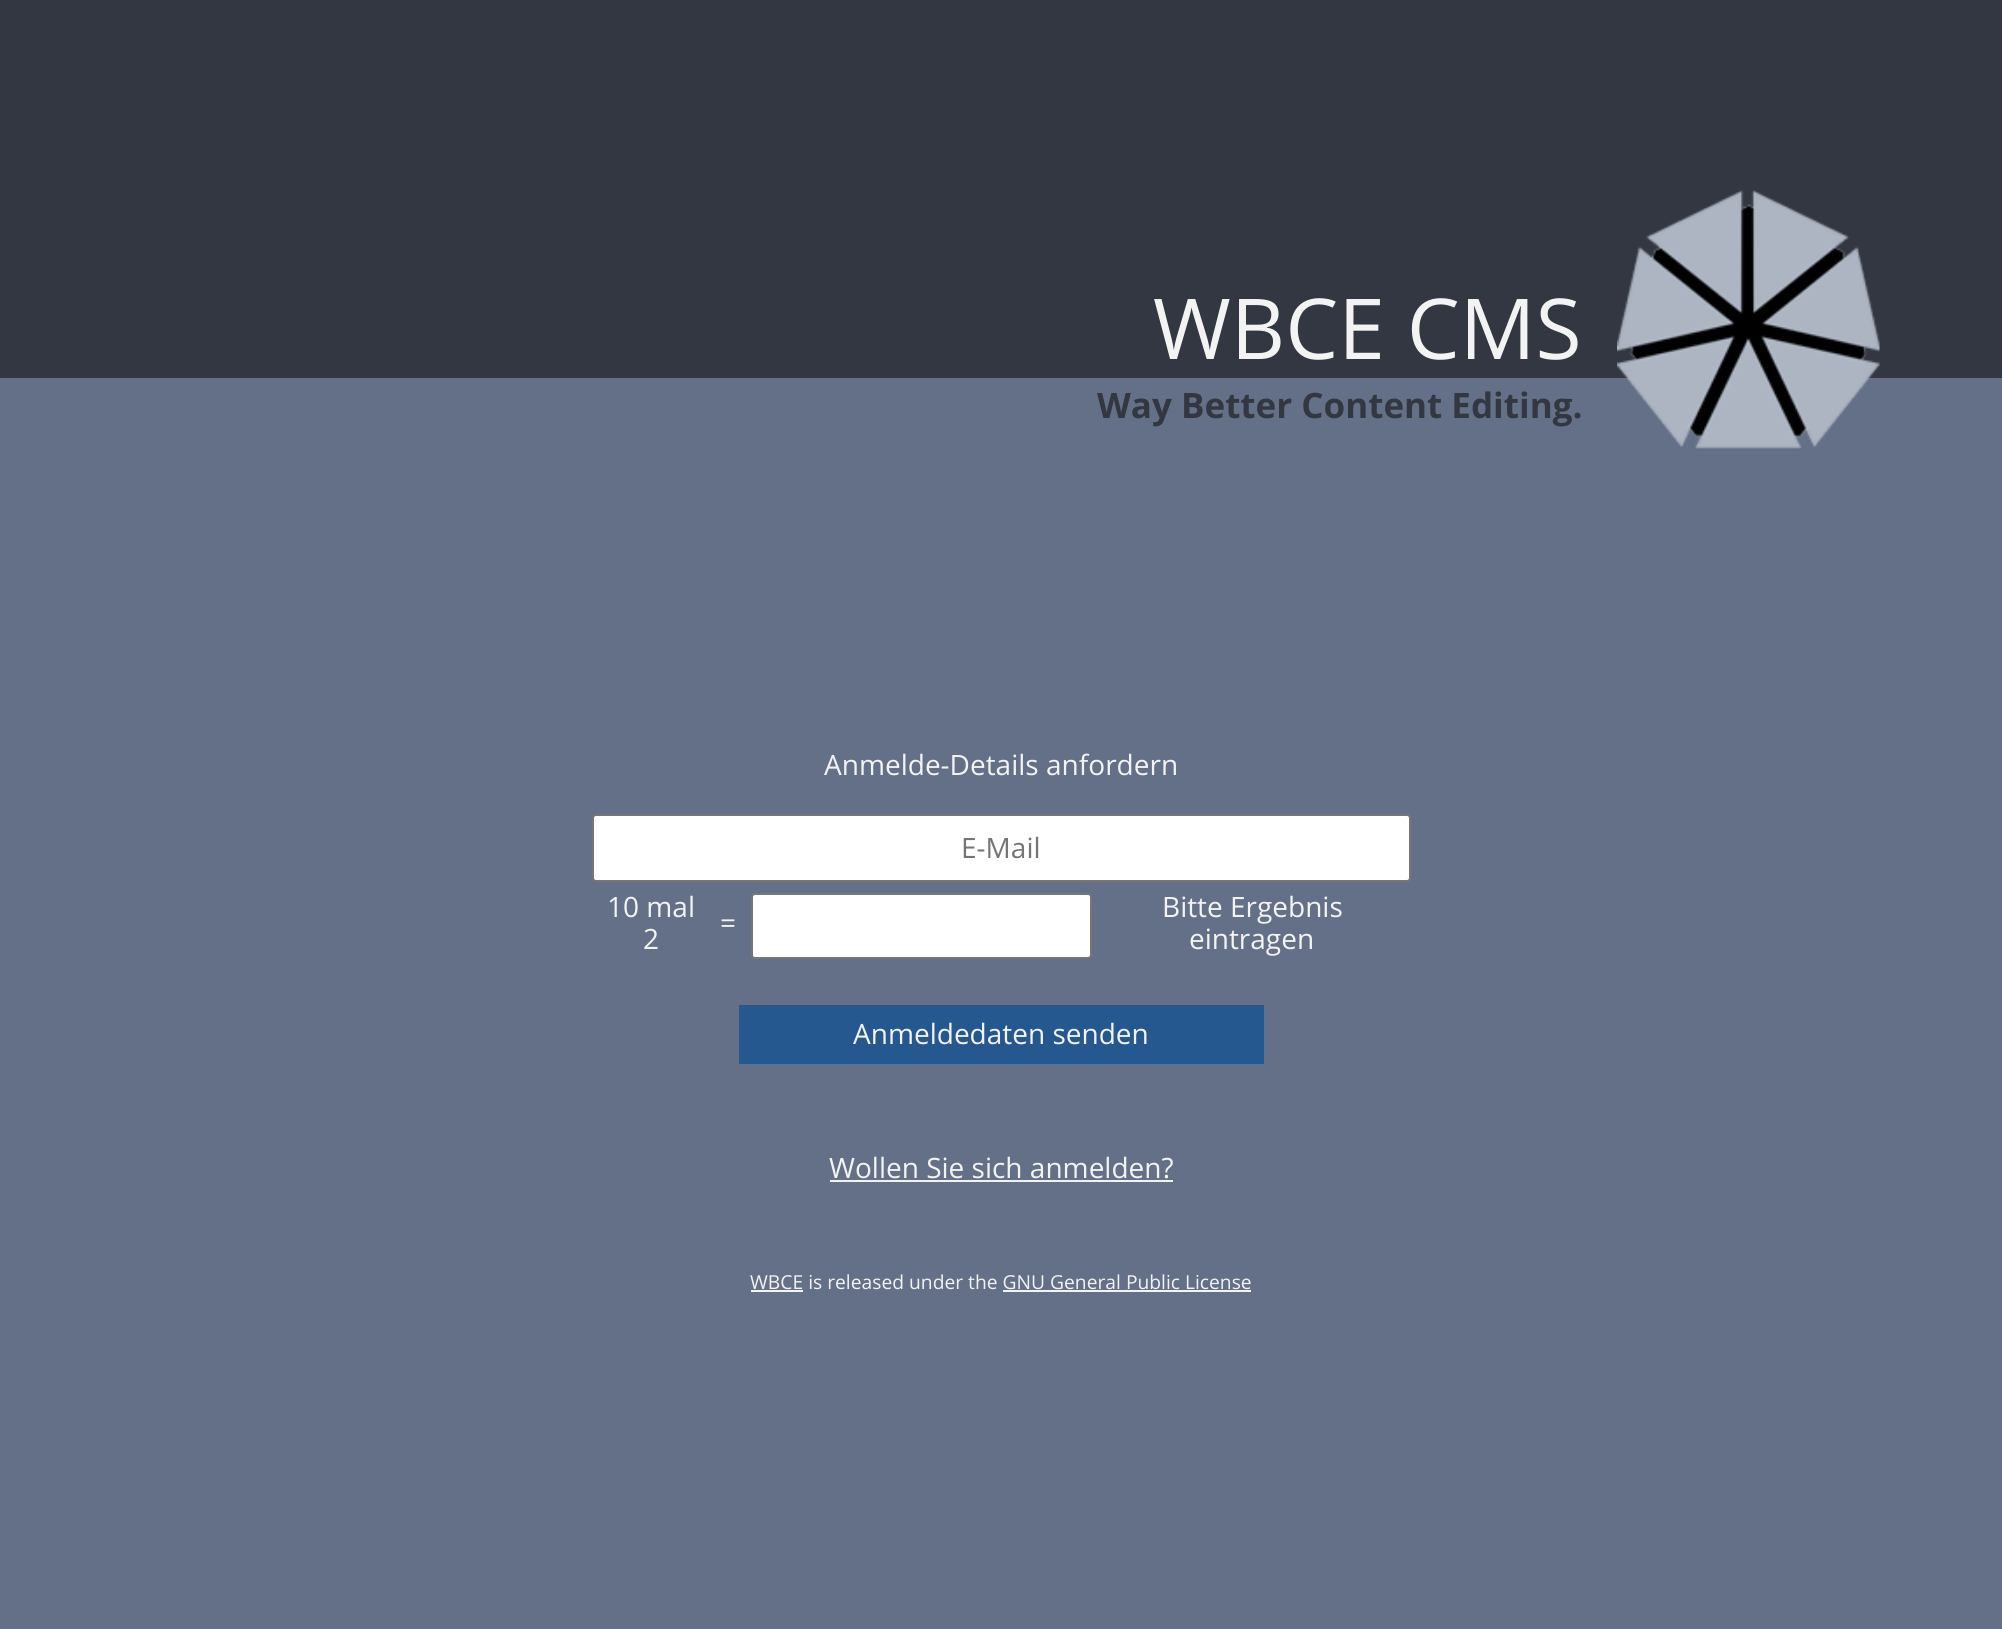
import math
import cairo

surface = cairo.ImageSurface(cairo.FORMAT_RGB24, 2002, 1629)
cr = cairo.Context(surface)
options = cairo.FontOptions()
options.set_hint_metrics(cairo.HINT_METRICS_OFF)
options.set_hint_style(cairo.HINT_STYLE_NONE)
cr.set_font_options(options)
cr.set_miter_limit(4)


def rgb(code):
    cr.set_source_rgb(*(v / 255 for v in bytes.fromhex(code[-6:])))


def rrect(x, y, w, h, r):
    cr.new_sub_path()
    for i, (u, v) in enumerate([(x + w - r, y + h - r), (x + r, y + h - r), (x + r, y + r), (x + w - r, y + r)]):
        cr.arc(u, v, r, i * math.pi / 2, (i + 1) * math.pi / 2)
    cr.close_path()


def image(path, x, y, w, h):
    cr.save()
    cr.set_source_surface(cairo.ImageSurface.create_from_png(path), x, y)
    cr.rectangle(x, y, w, h)
    cr.fill()
    cr.restore()


rgb("#647087")
cr.paint()
rgb("#323741")
cr.rectangle(0, 0, 2002, 378)
cr.fill()
image("img/1.png", 1617, 190, 263, 259)
rgb("#ffffff")
rrect(593, 815, 817, 66, 3)
cr.fill_preserve()
rgb("#767676")
cr.stroke()
rgb("#ffffff")
rrect(752, 894, 339, 64, 3)
cr.fill_preserve()
rgb("#767676")
cr.stroke()
for x, y, w, h, color in [
    (739, 1005, 525, 59, "#25588f"),
    (830, 1180, 343, 2, "#f3f3f3"),
    (751, 1290, 52, 2, "#f3f3f3"),
    (1003, 1290, 248, 2, "#f3f3f3"),
]:
    rgb(color)
    cr.rectangle(x, y, w, h)
    cr.fill()
cr.select_font_face("Open Sans")
cr.set_font_size(84)
cr.move_to(1153, 359)
cr.show_text("WBCE CMS")
cr.select_font_face("Open Sans", cairo.FONT_SLANT_NORMAL, cairo.FONT_WEIGHT_BOLD)
cr.set_font_size(35)
rgb("#323741")
cr.move_to(1097, 418)
cr.show_text("Way Better Content Editing.")
cr.select_font_face("Open Sans")
cr.set_font_size(28)
rgb("#f3f3f3")
cr.move_to(824, 775)
cr.show_text("Anmelde-Details anfordern")
rgb("#757575")
cr.move_to(961, 858)
cr.show_text("E-Mail")
rgb("#f3f3f3")
for x, y, s in [
    (607, 917, "10 mal"),
    (643, 949, "2"),
    (720, 933, "="),
    (1162, 917, "Bitte Ergebnis"),
    (1189, 949, "eintragen"),
    (853, 1044, "Anmeldedaten senden"),
    (829, 1178, "Wollen Sie sich anmelden?"),
]:
    cr.move_to(x, y)
    cr.show_text(s)
cr.set_font_size(19.25)
cr.move_to(750, 1289)
cr.show_text("WBCE is released under the GNU General Public License")
surface.write_to_png("page.png")
